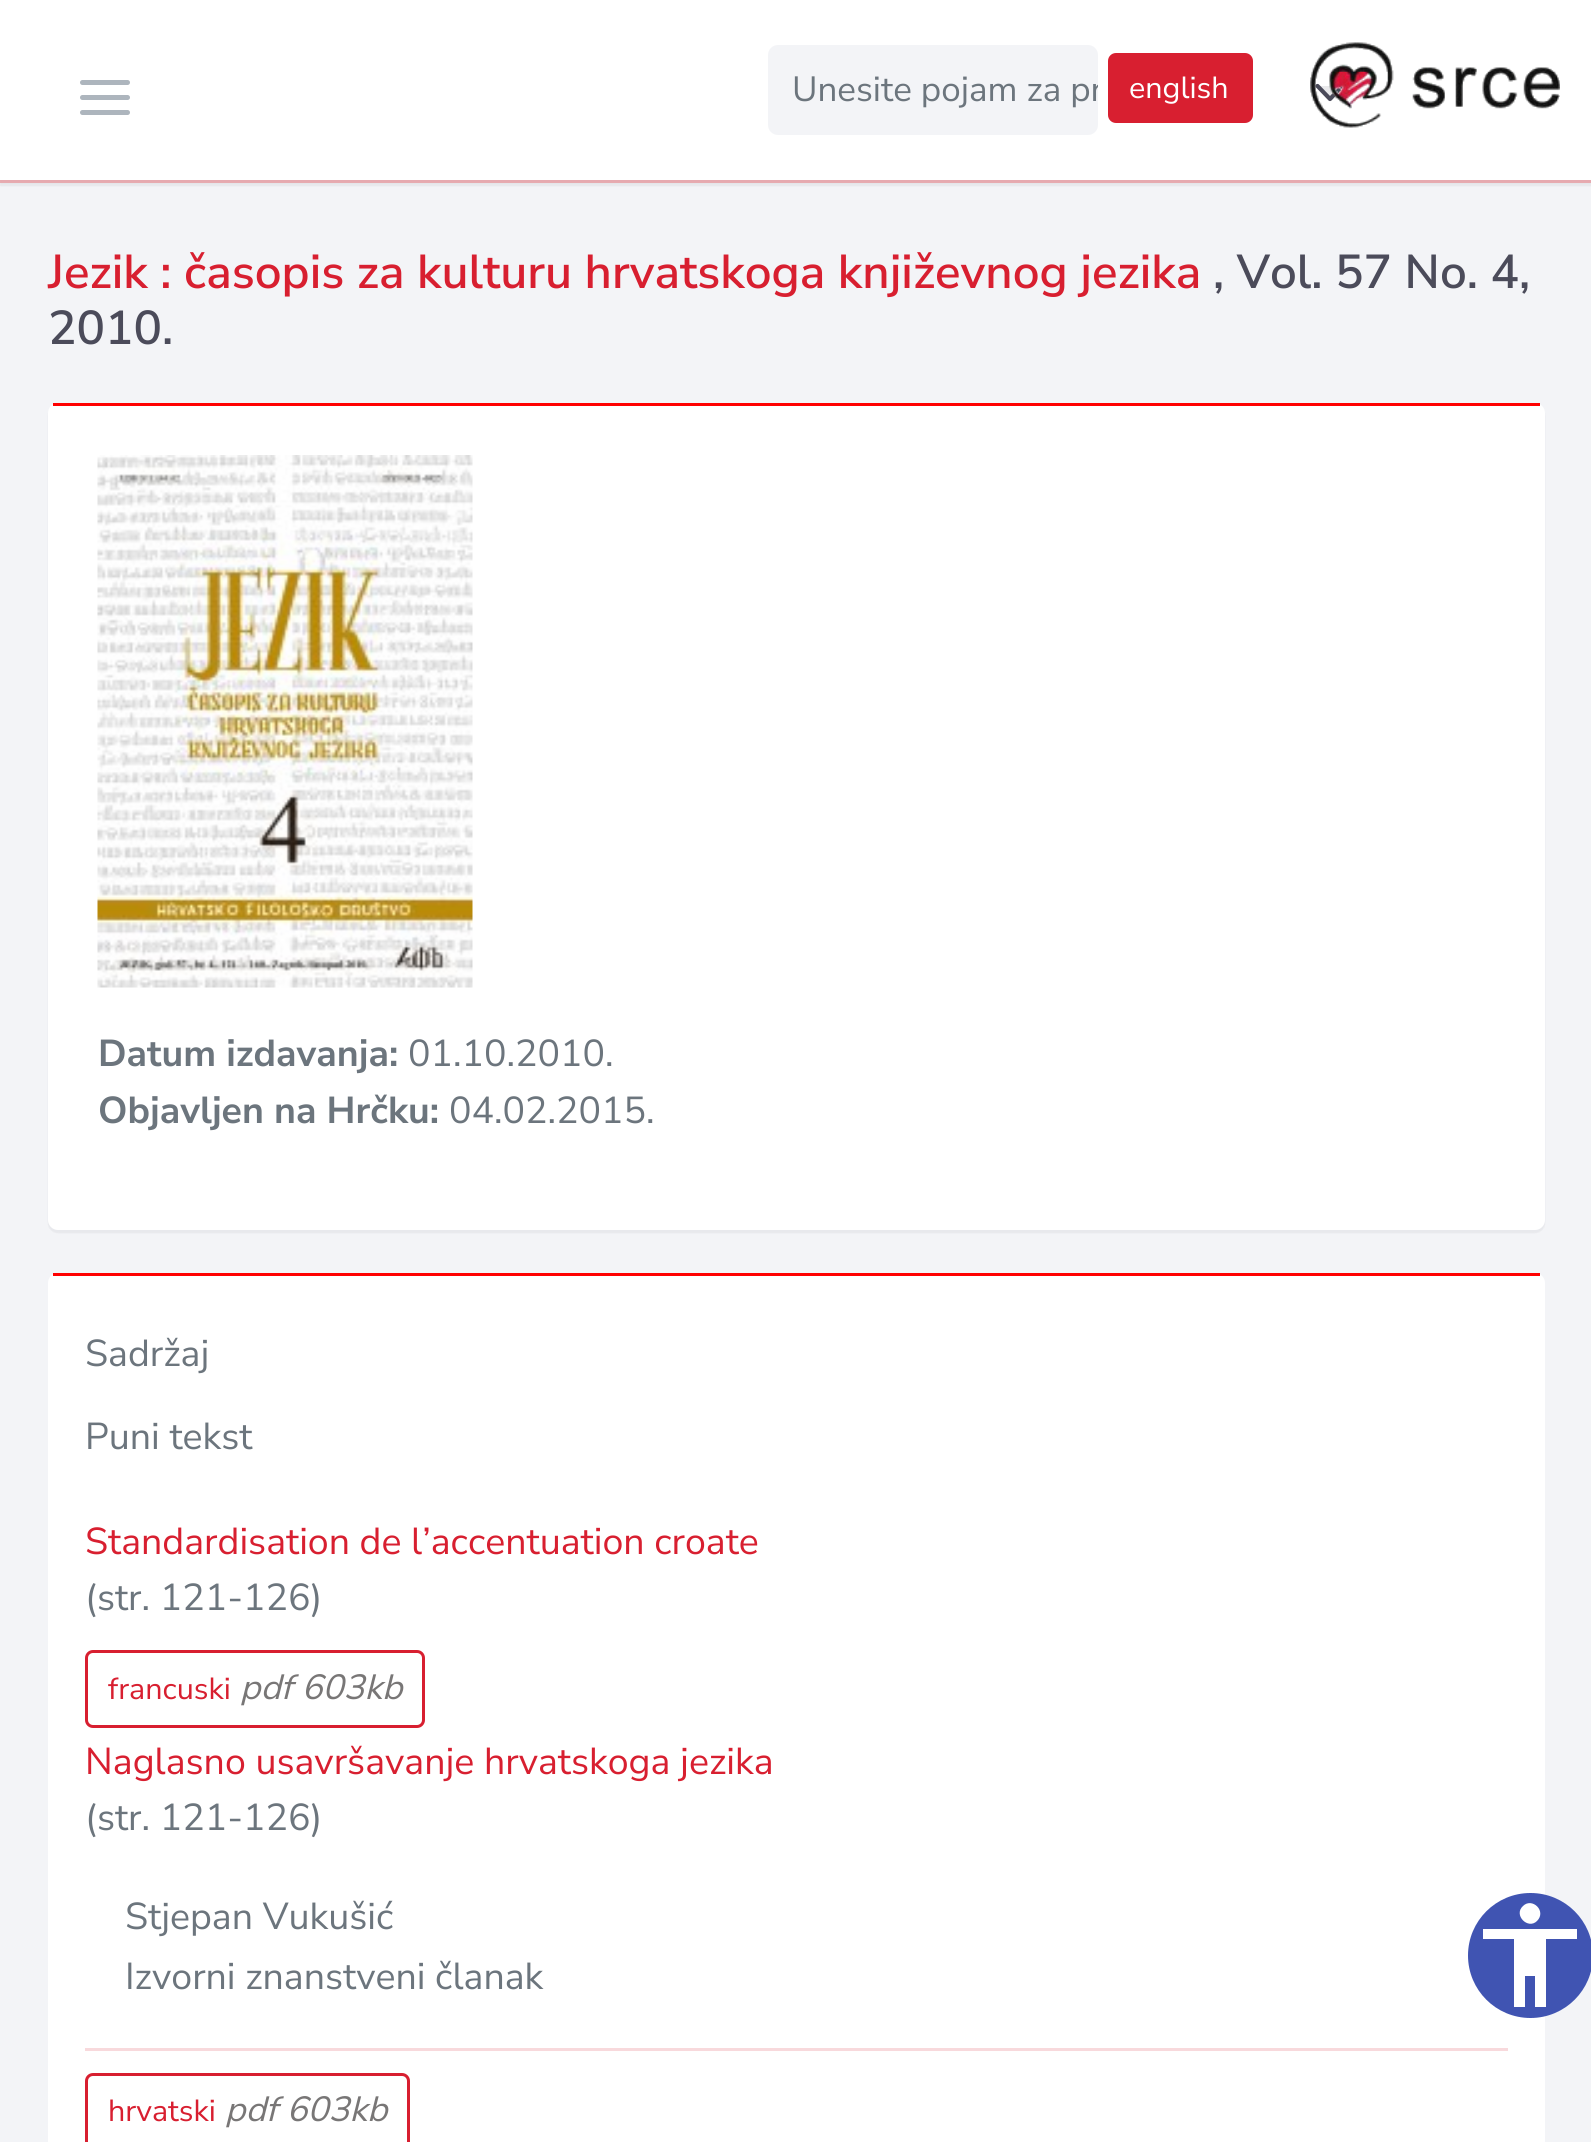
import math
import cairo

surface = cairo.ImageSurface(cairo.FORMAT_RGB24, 1591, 2142)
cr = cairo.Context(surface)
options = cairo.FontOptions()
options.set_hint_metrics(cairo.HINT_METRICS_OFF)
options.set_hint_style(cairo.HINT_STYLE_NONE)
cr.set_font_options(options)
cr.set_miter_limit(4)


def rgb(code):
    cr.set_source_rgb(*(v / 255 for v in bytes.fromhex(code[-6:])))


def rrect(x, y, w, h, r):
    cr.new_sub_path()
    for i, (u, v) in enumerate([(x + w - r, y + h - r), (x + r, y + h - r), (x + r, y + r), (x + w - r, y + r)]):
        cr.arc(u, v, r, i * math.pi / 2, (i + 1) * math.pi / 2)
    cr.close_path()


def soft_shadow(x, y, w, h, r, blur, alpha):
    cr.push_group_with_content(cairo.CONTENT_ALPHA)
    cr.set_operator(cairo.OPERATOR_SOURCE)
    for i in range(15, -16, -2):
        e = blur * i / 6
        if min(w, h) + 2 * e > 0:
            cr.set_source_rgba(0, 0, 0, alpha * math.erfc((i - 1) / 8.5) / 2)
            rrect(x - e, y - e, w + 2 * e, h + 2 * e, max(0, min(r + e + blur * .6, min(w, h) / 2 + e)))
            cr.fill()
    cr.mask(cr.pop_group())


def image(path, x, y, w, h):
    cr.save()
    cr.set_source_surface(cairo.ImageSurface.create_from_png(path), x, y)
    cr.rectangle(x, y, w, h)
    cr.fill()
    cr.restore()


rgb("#f3f4f7")
cr.paint()
rgb("#4b4b5a")
soft_shadow(0, 183, 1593, 3, 0, 0.5, 0.07)
rgb("#f1b1b6")
cr.rectangle(0, 180, 1591, 3)
cr.fill()
rgb("#4b4b5a")
soft_shadow(0, 3, 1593, 180, 0, 0.5, 0.07)
rgb("#ffffff")
cr.rectangle(0, 0, 1591, 180)
cr.fill()
cr.new_path()
cr.move_to(82.5, 97.5)
cr.line_to(127.5, 97.5)
cr.move_to(82.5, 82.5)
cr.line_to(127.5, 82.5)
cr.move_to(82.5, 112.5)
cr.line_to(127.5, 112.5)
rgb("#adb5bd")
cr.set_line_width(5)
cr.set_line_cap(cairo.LINE_CAP_ROUND)
cr.set_line_join(cairo.LINE_JOIN_ROUND)
cr.stroke()
rgb("#f3f4f7")
rrect(768, 45, 330, 90, 10)
cr.fill()
rgb("#d81f30")
rrect(1109.5, 54.5, 142, 67, 6.5)
cr.fill_preserve()
cr.set_line_width(3)
cr.set_line_cap(cairo.LINE_CAP_BUTT)
cr.set_line_join(cairo.LINE_JOIN_MITER)
cr.stroke()
rgb("#e9e9eb")
cr.new_path()
cr.move_to(1317.5, 86)
cr.line_to(1330, 99)
cr.line_to(1342.5, 86)
cr.fill_preserve()
rgb("#4b4b5a")
cr.set_line_width(4.2)
cr.set_line_cap(cairo.LINE_CAP_ROUND)
cr.set_line_join(cairo.LINE_JOIN_ROUND)
cr.stroke()
image("img/1.png", 1310, 42, 250, 86)
rgb("#4b4b5a")
soft_shadow(48, 405, 1497, 828, 10, 0.5, 0.07)
rgb("#ffffff")
rrect(48, 403, 1497, 827, 10)
cr.fill()
rgb("#ff0000")
cr.rectangle(53, 403, 1487, 3)
cr.fill()
image("img/2.png", 97, 455, 376, 533)
rgb("#ffffff")
rrect(48, 1273, 1497, 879, 10)
cr.fill()
rgb("#ff0000")
cr.rectangle(53, 1273, 1487, 3)
cr.fill()
rrect(86.5, 1651.5, 337, 75, 6.5)
rgb("#d81f30")
cr.set_line_width(3)
cr.set_line_cap(cairo.LINE_CAP_BUTT)
cr.set_line_join(cairo.LINE_JOIN_MITER)
cr.stroke()
rgb("#f8d9dc")
cr.rectangle(85, 2048, 1423, 3)
cr.fill()
rrect(86.5, 2074.5, 322, 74, 6.5)
rgb("#d81f30")
cr.stroke()
rgb("#4054b2")
cr.arc(1530.5, 1955.5, 62.5, 0, 2 * math.pi)
cr.fill()
rgb("#ffffff")
cr.new_path()
cr.move_to(1577, 1939)
cr.line_to(1546, 1939)
cr.line_to(1546, 2007)
cr.line_to(1535, 2007)
cr.line_to(1535, 1976)
cr.line_to(1525, 1976)
cr.line_to(1525, 2007)
cr.line_to(1514, 2007)
cr.line_to(1514, 1939)
cr.line_to(1483, 1939)
cr.line_to(1483, 1929)
cr.line_to(1577, 1929)
cr.close_path()
cr.move_to(1523, 1906)
cr.curve_to(1532, 1897, 1547, 1911, 1537, 1921)
cr.curve_to(1528, 1930, 1513, 1915, 1523, 1906)
cr.close_path()
cr.fill()
cr.save()
rrect(768, 45, 330, 90, 10)
cr.clip()
cr.select_font_face("Nunito Sans")
cr.set_font_size(35)
rgb("#6c757d")
cr.move_to(792, 101)
cr.show_text("Unesite pojam za pr")
cr.restore()
cr.select_font_face("Nunito Sans")
cr.set_font_size(30.5)
cr.move_to(1129, 98)
cr.show_text("english")
cr.select_font_face("Nunito Sans SemiBold")
cr.set_font_size(47.5)
rgb("#d81f30")
cr.move_to(48, 288)
cr.show_text("Jezik : časopis za kulturu hrvatskoga književnog jezika")
rgb("#4b4b5a")
cr.move_to(1213, 288)
cr.show_text(", Vol. 57 No. 4,")
cr.move_to(48, 344)
cr.show_text("2010.")
cr.select_font_face("Nunito Sans", cairo.FONT_SLANT_NORMAL, cairo.FONT_WEIGHT_BOLD)
cr.set_font_size(37.5)
rgb("#6c757d")
cr.move_to(98, 1066)
cr.show_text("Datum izdavanja:")
cr.select_font_face("Nunito Sans")
cr.move_to(408, 1066)
cr.show_text("01.10.2010.")
cr.select_font_face("Nunito Sans", cairo.FONT_SLANT_NORMAL, cairo.FONT_WEIGHT_BOLD)
cr.move_to(98, 1123)
cr.show_text("Objavljen na Hrčku:")
cr.select_font_face("Nunito Sans")
for x, y, s in [
    (449, 1123, "04.02.2015."),
    (85, 1366, "Sadržaj"),
    (85, 1449, "Puni tekst"),
]:
    cr.move_to(x, y)
    cr.show_text(s)
rgb("#d81f30")
cr.move_to(85, 1554)
cr.show_text("Standardisation de l’accentuation croate")
rgb("#6c757d")
cr.move_to(85, 1610)
cr.show_text("(str. 121-126)")
cr.set_font_size(30.5)
rgb("#d81f30")
cr.move_to(108, 1699)
cr.show_text("francuski")
cr.select_font_face("Nunito Sans", cairo.FONT_SLANT_ITALIC)
cr.set_font_size(35)
rgb("#787676")
cr.move_to(240, 1699)
cr.show_text("pdf 603kb")
cr.select_font_face("Nunito Sans")
cr.set_font_size(37.5)
rgb("#d81f30")
cr.move_to(85, 1774)
cr.show_text("Naglasno usavršavanje hrvatskoga jezika")
rgb("#6c757d")
for x, y, s in [
    (85, 1830, "(str. 121-126)"),
    (125, 1929, "Stjepan Vukušić"),
    (125, 1989, "Izvorni znanstveni članak"),
]:
    cr.move_to(x, y)
    cr.show_text(s)
cr.set_font_size(30.5)
rgb("#d81f30")
cr.move_to(108, 2121)
cr.show_text("hrvatski")
cr.select_font_face("Nunito Sans", cairo.FONT_SLANT_ITALIC)
cr.set_font_size(35)
rgb("#787676")
cr.move_to(225, 2121)
cr.show_text("pdf 603kb")
surface.write_to_png("page.png")
